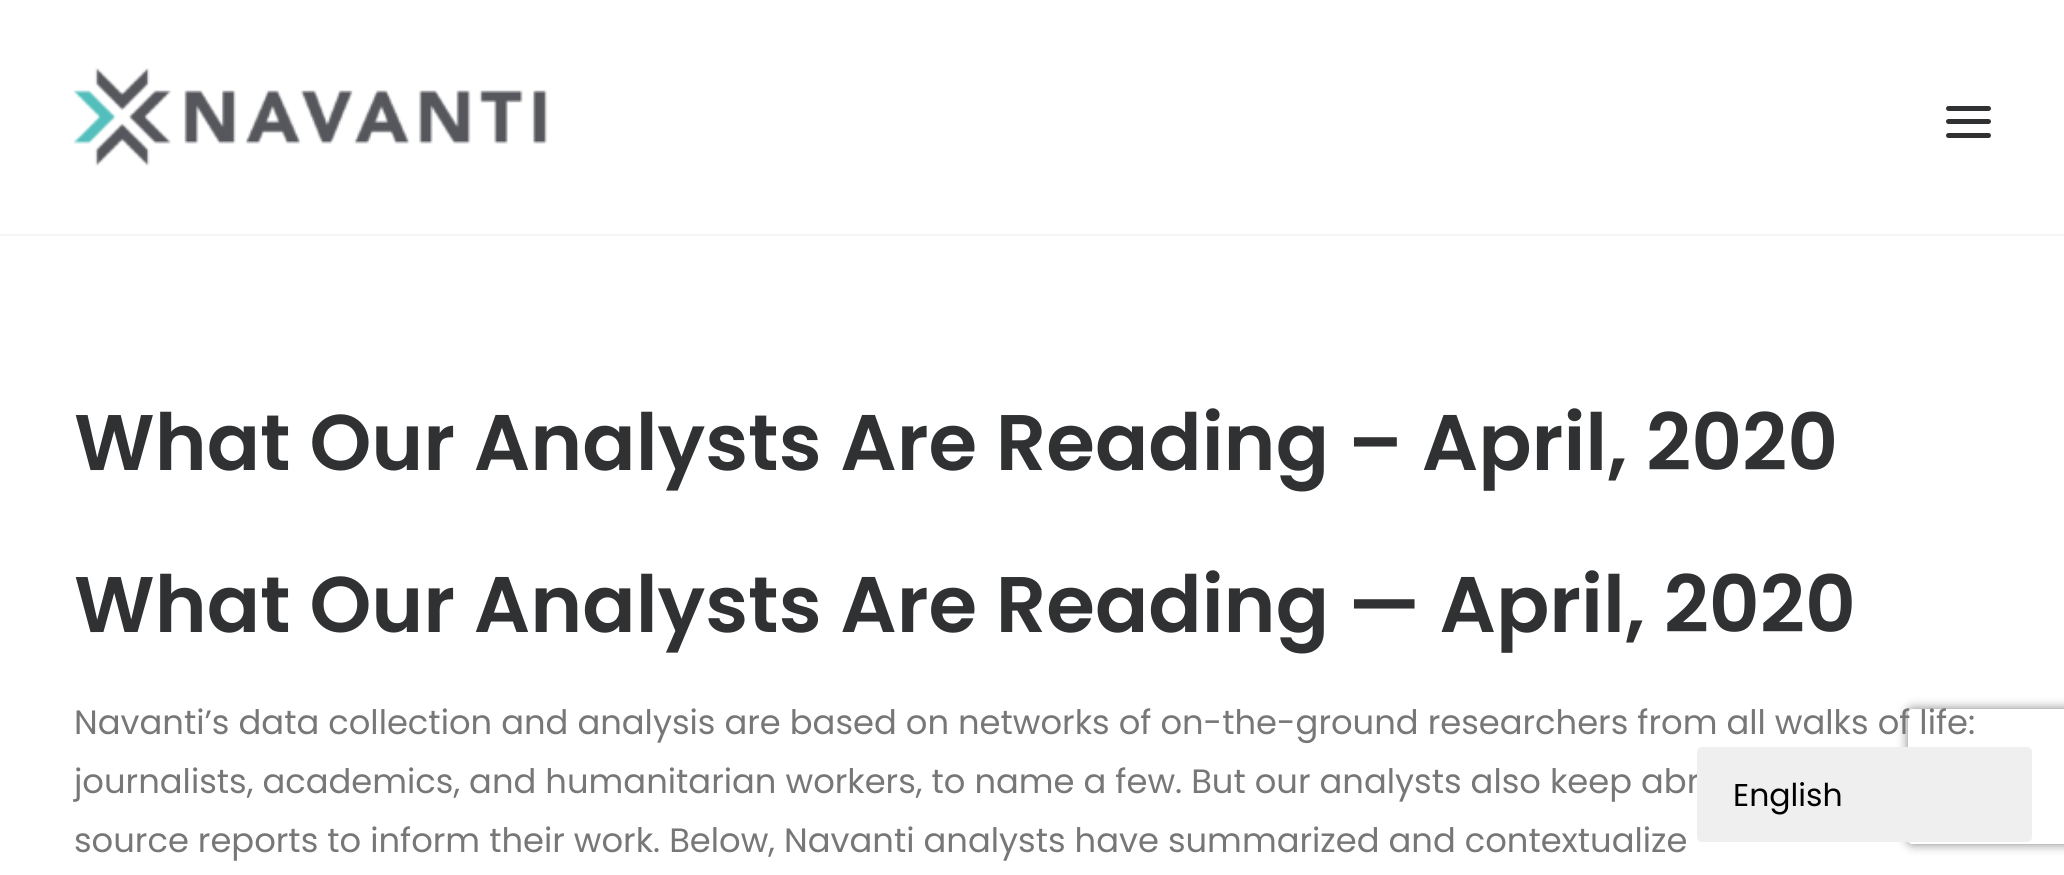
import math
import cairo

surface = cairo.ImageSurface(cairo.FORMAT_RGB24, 2064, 875)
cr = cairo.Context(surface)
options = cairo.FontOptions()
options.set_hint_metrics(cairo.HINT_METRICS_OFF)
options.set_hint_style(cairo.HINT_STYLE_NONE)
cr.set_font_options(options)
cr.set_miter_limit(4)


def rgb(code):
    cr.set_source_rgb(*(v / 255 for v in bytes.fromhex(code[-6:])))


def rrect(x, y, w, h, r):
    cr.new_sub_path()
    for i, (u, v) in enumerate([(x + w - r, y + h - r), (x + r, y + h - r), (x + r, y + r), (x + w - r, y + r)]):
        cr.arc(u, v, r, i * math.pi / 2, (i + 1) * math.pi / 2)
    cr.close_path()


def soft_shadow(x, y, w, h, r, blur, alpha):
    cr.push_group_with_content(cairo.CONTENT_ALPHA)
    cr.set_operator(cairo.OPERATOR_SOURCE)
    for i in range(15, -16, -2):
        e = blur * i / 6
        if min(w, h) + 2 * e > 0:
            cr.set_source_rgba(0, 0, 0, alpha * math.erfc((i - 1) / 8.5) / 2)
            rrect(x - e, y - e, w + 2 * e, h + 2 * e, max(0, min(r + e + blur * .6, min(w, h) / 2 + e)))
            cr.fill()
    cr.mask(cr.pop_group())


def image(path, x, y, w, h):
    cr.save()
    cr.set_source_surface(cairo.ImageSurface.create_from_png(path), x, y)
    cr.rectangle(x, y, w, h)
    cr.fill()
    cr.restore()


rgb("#ffffff")
cr.paint()
rgb("#f5f5f5")
cr.rectangle(0, 234, 2064, 2)
cr.fill()
image("img/1.png", 74, 68, 474, 98)
rgb("#303133")
rrect(1946, 119, 45, 5, 2.5)
cr.fill()
rrect(1946, 106, 45, 5, 2.5)
cr.fill()
rrect(1946, 133, 45, 5, 2.5)
cr.fill()
cr.save()
cr.set_fill_rule(cairo.FILL_RULE_EVEN_ODD)
cr.new_path()
cr.move_to(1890, 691)
cr.line_to(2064, 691)
cr.line_to(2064, 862)
cr.line_to(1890, 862)
cr.close_path()
cr.move_to(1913, 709)
cr.line_to(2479, 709)
cr.curve_to(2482, 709, 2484, 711, 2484, 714)
cr.line_to(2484, 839)
cr.curve_to(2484, 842, 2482, 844, 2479, 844)
cr.line_to(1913, 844)
cr.curve_to(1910, 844, 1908, 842, 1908, 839)
cr.line_to(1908, 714)
cr.curve_to(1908, 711, 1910, 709, 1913, 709)
cr.close_path()
cr.clip()
rgb("#808080")
soft_shadow(1908, 709, 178, 135, 5, 5.5, 1)
cr.restore()
cr.select_font_face("Poppins SemiBold")
cr.set_font_size(78.75)
cr.move_to(74, 470)
cr.show_text("What Our Analysts Are Reading – April, 2020")
cr.move_to(74, 632)
cr.show_text("What Our Analysts Are Reading — April, 2020")
cr.select_font_face("Poppins")
cr.set_font_size(33.75)
rgb("#777777")
for x, y, s in [
    (74, 734, "Navanti’s data collection and analysis are based on networks of on-the-ground researchers from all walks of life:"),
    (74, 793, "journalists, academics, and humanitarian workers, to name a few. But our analysts also keep abr"),
    (74, 852, "source reports to inform their work. Below, Navanti analysts have summarized and contextualize"),
]:
    cr.move_to(x, y)
    cr.show_text(s)
rgb("#efefef")
rrect(1697, 747, 335, 95, 5)
cr.fill()
cr.set_font_size(31.5)
rgb("#000000")
cr.move_to(1733, 806)
cr.show_text("English")
surface.write_to_png("page.png")
